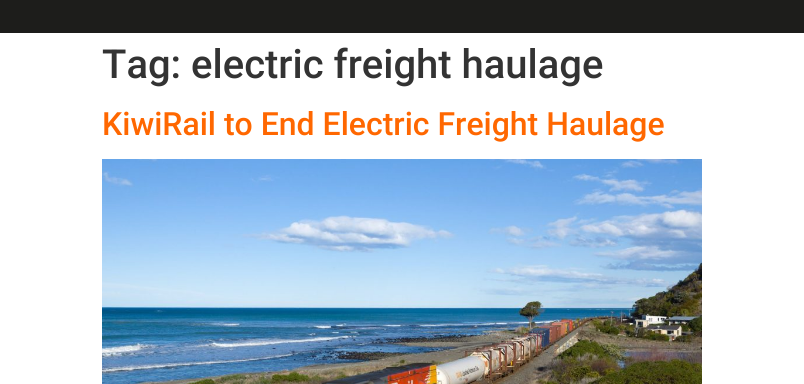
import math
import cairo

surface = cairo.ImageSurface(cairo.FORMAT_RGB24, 804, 384)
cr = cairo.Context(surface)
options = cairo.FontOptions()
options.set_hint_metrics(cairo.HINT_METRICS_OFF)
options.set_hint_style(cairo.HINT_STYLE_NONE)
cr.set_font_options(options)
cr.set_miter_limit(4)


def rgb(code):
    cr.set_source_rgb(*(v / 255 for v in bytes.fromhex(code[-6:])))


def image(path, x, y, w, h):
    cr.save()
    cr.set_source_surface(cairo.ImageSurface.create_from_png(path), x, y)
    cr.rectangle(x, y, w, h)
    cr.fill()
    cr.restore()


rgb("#ffffff")
cr.paint()
rgb("#1d1d1b")
cr.rectangle(0, 0, 804, 33)
cr.fill()
image("img/1.png", 102, 159, 600, 225)
cr.select_font_face("Roboto Medium")
cr.set_font_size(40)
rgb("#333333")
cr.move_to(102, 78)
cr.show_text("Tag: electric freight haulage")
cr.set_font_size(32)
rgb("#ff6700")
cr.move_to(102, 135)
cr.show_text("KiwiRail to End Electric Freight Haulage")
surface.write_to_png("page.png")
